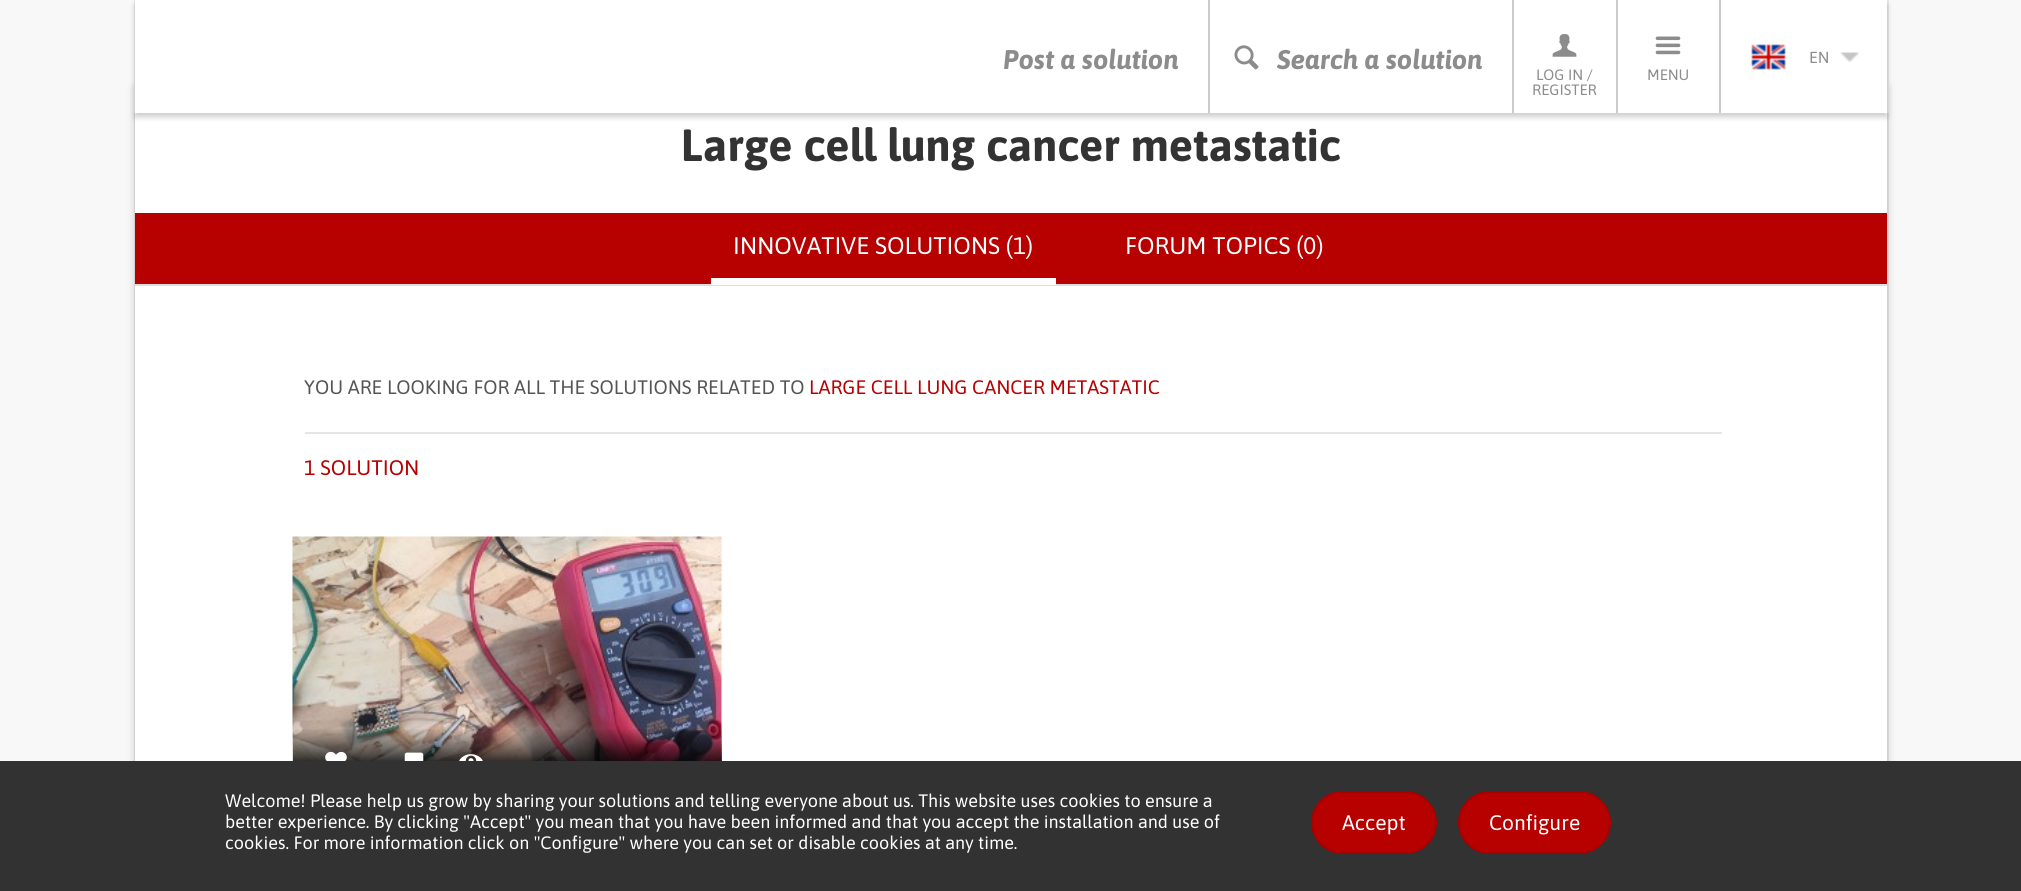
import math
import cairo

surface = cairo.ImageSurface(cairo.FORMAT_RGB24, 2021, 891)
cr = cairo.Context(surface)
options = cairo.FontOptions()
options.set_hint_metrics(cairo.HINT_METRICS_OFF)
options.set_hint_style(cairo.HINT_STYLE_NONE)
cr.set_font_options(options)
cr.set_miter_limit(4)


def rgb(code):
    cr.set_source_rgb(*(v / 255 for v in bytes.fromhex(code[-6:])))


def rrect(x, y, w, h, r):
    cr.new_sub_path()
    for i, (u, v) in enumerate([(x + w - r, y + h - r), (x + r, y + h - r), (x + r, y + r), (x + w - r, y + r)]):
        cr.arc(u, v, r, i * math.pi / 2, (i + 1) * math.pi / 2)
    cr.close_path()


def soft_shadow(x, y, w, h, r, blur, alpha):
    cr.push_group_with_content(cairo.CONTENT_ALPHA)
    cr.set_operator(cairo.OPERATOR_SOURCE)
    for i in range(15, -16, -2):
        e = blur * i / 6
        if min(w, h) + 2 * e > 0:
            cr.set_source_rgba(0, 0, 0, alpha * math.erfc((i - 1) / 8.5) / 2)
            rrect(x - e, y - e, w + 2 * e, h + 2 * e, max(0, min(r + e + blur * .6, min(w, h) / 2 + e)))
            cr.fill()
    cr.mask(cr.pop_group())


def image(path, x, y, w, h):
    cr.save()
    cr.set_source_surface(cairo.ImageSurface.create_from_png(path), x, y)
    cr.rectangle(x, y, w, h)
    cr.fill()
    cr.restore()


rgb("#f8f8f8")
cr.paint()
rgb("#e6e6e6")
cr.rectangle(1887, 113, 2, 648)
cr.fill()
cr.rectangle(134, 113, 1, 648)
cr.fill()
rgb("#000000")
soft_shadow(135, 87, 1752, 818, 0, 4.5, 0.2)
for x, y, w, h, color in [
    (1887, 0, 2, 113, "#e6e6e6"),
    (134, 0, 1, 113, "#e6e6e6"),
    (135, 113, 1752, 648, "#ffffff"),
]:
    rgb(color)
    cr.rectangle(x, y, w, h)
    cr.fill()
rgb("#000000")
soft_shadow(135, 5, 1752, 112, 0, 3, 0.2)
for x, y, w, h, color in [
    (135, 0, 1752, 113, "#ffffff"),
    (1208, 0, 2, 113, "#cbcbcb"),
    (1512, 0, 2, 113, "#cbcbcb"),
]:
    rgb(color)
    cr.rectangle(x, y, w, h)
    cr.fill()
image("img/1.png", 1234, 45, 25, 25)
image("img/2.png", 1751, 44, 35, 26)
image("img/3.png", 1840, 52, 19, 10)
cr.rectangle(1616, 0, 2, 113)
cr.fill()
image("img/4.png", 1552, 34, 25, 23)
cr.rectangle(1719, 0, 2, 113)
cr.fill()
image("img/5.png", 1655, 36, 26, 19)
for x, y, w, h, color in [
    (135, 213, 1752, 71, "#b70000"),
    (135, 284, 1752, 2, "#dddddd"),
    (711, 278, 345, 7, "#ffffff"),
    (305, 432, 1417, 2, "#e5e5e5"),
]:
    rgb(color)
    cr.rectangle(x, y, w, h)
    cr.fill()
image("img/6.png", 292, 536, 430, 225)
gradient = cairo.LinearGradient(507, 728, 507, 786)
gradient.add_color_stop_rgba(0, 0, 0, 0, 0)
gradient.add_color_stop_rgba(0.6, 0, 0, 0, 0.8)
cr.set_source(gradient)
cr.rectangle(293, 729, 429, 32)
cr.fill()
image("img/7.png", 325, 751, 22, 10)
image("img/8.png", 404, 752, 20, 9)
image("img/9.png", 459, 754, 24, 7)
rgb("#323232")
cr.rectangle(0, 761, 2021, 130)
cr.fill()
rgb("#b70000")
rrect(1312, 792, 124, 61, 30.5)
cr.fill_preserve()
rgb("#a70000")
cr.stroke()
rgb("#b70000")
rrect(1459, 792, 151, 61, 30.5)
cr.fill_preserve()
rgb("#a70000")
cr.stroke()
cr.select_font_face("Asap", cairo.FONT_SLANT_ITALIC, cairo.FONT_WEIGHT_BOLD)
cr.set_font_size(27)
rgb("#8c8c8c")
cr.move_to(1003, 69)
cr.show_text("Post a solution")
cr.move_to(1277, 69)
cr.show_text("Search a solution")
cr.select_font_face("Asap")
cr.set_font_size(16)
cr.move_to(1809, 63)
cr.show_text("EN")
cr.set_font_size(15)
for x, y, s in [
    (1536, 80, "LOG IN /"),
    (1532, 95, "REGISTER"),
    (1647, 80, "MENU"),
]:
    cr.move_to(x, y)
    cr.show_text(s)
cr.select_font_face("Asap", cairo.FONT_SLANT_NORMAL, cairo.FONT_WEIGHT_BOLD)
cr.set_font_size(45)
rgb("#333333")
cr.move_to(681, 161)
cr.show_text("Large cell lung cancer metastatic")
cr.select_font_face("Asap")
cr.set_font_size(24)
rgb("#ffffff")
cr.move_to(733, 254)
cr.show_text("INNOVATIVE SOLUTIONS (1)")
cr.move_to(1125, 254)
cr.show_text("FORUM TOPICS (0)")
cr.set_font_size(19.5)
rgb("#555555")
cr.move_to(304, 394)
cr.show_text("YOU ARE LOOKING FOR ALL THE SOLUTIONS RELATED TO")
rgb("#b70000")
cr.move_to(809, 394)
cr.show_text("LARGE CELL LUNG CANCER METASTATIC")
cr.set_font_size(21)
cr.move_to(304, 475)
cr.show_text("1 SOLUTION")
cr.set_font_size(18)
rgb("#ffffff")
for x, y, s in [
    (225, 807, "Welcome! Please help us grow by sharing your solutions and telling everyone about us. This website uses cookies to ensure a"),
    (225, 828, "better experience. By clicking \"Accept\" you mean that you have been informed and that you accept the installation and use of"),
    (225, 849, "cookies. For more information click on \"Configure\" where you can set or disable cookies at any time."),
]:
    cr.move_to(x, y)
    cr.show_text(s)
cr.set_font_size(21)
cr.move_to(1342, 830)
cr.show_text("Accept")
cr.move_to(1489, 830)
cr.show_text("Configure")
surface.write_to_png("page.png")
